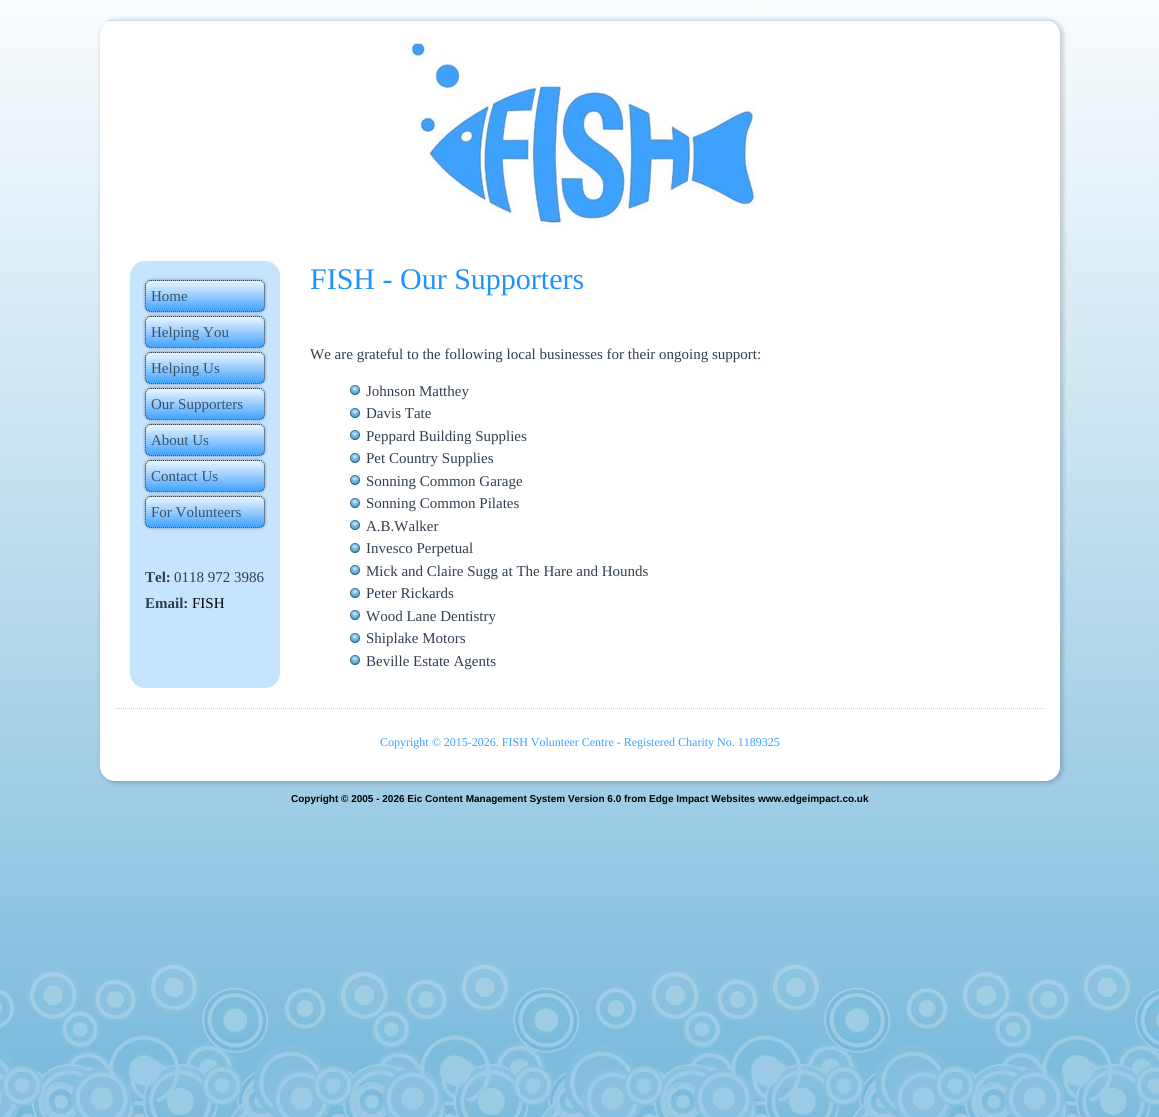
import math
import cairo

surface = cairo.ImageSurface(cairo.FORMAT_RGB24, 1159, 1117)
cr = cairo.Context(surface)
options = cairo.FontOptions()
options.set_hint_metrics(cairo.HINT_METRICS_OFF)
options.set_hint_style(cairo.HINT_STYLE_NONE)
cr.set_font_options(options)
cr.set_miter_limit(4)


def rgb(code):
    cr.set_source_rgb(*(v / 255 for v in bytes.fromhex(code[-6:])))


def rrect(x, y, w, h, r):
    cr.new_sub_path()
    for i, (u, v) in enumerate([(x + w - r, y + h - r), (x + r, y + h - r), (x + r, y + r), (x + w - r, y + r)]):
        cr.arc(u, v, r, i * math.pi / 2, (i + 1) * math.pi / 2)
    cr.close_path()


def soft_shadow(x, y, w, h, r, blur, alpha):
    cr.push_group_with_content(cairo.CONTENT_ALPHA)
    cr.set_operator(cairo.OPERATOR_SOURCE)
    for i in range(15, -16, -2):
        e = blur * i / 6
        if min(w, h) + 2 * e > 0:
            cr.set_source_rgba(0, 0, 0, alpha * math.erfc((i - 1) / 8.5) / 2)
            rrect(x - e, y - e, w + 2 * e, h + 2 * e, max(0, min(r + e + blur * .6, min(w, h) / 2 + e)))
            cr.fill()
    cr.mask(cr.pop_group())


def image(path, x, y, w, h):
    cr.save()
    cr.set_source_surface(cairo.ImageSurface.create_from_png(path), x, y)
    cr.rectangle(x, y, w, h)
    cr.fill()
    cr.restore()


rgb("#ffffff")
cr.paint()
image("img/1.png", 0, 0, 1159, 1117)
rgb("#000000")
soft_shadow(100, 19, 964, 765, 17, 2, 0.15)
rgb("#ffffff")
rrect(100, 20, 960, 761, 15)
cr.fill()
rgb("#bfddee")
cr.rectangle(108, 20, 945, 1)
cr.fill()
image("img/2.png", 403, 37, 353, 192)
rgb("#c7e4ff")
rrect(130, 261, 150, 427, 15)
cr.fill()
rgb("#000000")
soft_shadow(144, 279, 122, 34, 7, 1, 0.2)
cr.save()
rrect(145, 280, 120, 32, 6)
cr.clip()
gradient = cairo.LinearGradient(205, 281, 205, 311)
gradient.add_color_stop_rgba(0, 0.922, 0.961, 1, 1)
gradient.add_color_stop_rgba(1, 0.259, 0.643, 1, 1)
cr.set_source(gradient)
cr.rectangle(146, 281, 118, 30)
cr.fill()
cr.restore()
cr.new_path()
cr.move_to(151, 280.5)
cr.line_to(259, 280.5)
cr.curve_to(262, 280.5, 264.5, 283, 264.5, 286)
cr.line_to(264.5, 306)
cr.curve_to(264.5, 309, 262, 311.5, 259, 311.5)
cr.line_to(151, 311.5)
cr.curve_to(148, 311.5, 145.5, 309, 145.5, 306)
cr.line_to(145.5, 286)
cr.curve_to(145.5, 283, 148, 280.5, 151, 280.5)
cr.close_path()
rgb("#2e3d4c")
cr.set_line_width(1)
cr.set_dash([1, 1])
cr.stroke()
rgb("#000000")
soft_shadow(144, 315, 122, 34, 7, 1, 0.2)
cr.save()
rrect(145, 316, 120, 32, 6)
cr.clip()
gradient = cairo.LinearGradient(205, 317, 205, 347)
gradient.add_color_stop_rgba(0, 0.922, 0.961, 1, 1)
gradient.add_color_stop_rgba(1, 0.259, 0.643, 1, 1)
cr.set_source(gradient)
cr.rectangle(146, 317, 118, 30)
cr.fill()
cr.restore()
cr.new_path()
cr.move_to(151, 316.5)
cr.line_to(259, 316.5)
cr.curve_to(262, 316.5, 264.5, 319, 264.5, 322)
cr.line_to(264.5, 342)
cr.curve_to(264.5, 345, 262, 347.5, 259, 347.5)
cr.line_to(151, 347.5)
cr.curve_to(148, 347.5, 145.5, 345, 145.5, 342)
cr.line_to(145.5, 322)
cr.curve_to(145.5, 319, 148, 316.5, 151, 316.5)
cr.close_path()
rgb("#2e3d4c")
cr.stroke()
rgb("#000000")
soft_shadow(144, 351, 122, 34, 7, 1, 0.2)
cr.save()
rrect(145, 352, 120, 32, 6)
cr.clip()
gradient = cairo.LinearGradient(205, 353, 205, 383)
gradient.add_color_stop_rgba(0, 0.922, 0.961, 1, 1)
gradient.add_color_stop_rgba(1, 0.259, 0.643, 1, 1)
cr.set_source(gradient)
cr.rectangle(146, 353, 118, 30)
cr.fill()
cr.restore()
cr.new_path()
cr.move_to(151, 352.5)
cr.line_to(259, 352.5)
cr.curve_to(262, 352.5, 264.5, 355, 264.5, 358)
cr.line_to(264.5, 378)
cr.curve_to(264.5, 381, 262, 383.5, 259, 383.5)
cr.line_to(151, 383.5)
cr.curve_to(148, 383.5, 145.5, 381, 145.5, 378)
cr.line_to(145.5, 358)
cr.curve_to(145.5, 355, 148, 352.5, 151, 352.5)
cr.close_path()
rgb("#2e3d4c")
cr.stroke()
rgb("#000000")
soft_shadow(144, 387, 122, 34, 7, 1, 0.2)
cr.save()
rrect(145, 388, 120, 32, 6)
cr.clip()
gradient = cairo.LinearGradient(205, 389, 205, 419)
gradient.add_color_stop_rgba(0, 0.922, 0.961, 1, 1)
gradient.add_color_stop_rgba(1, 0.259, 0.643, 1, 1)
cr.set_source(gradient)
cr.rectangle(146, 389, 118, 30)
cr.fill()
cr.restore()
cr.new_path()
cr.move_to(151, 388.5)
cr.line_to(259, 388.5)
cr.curve_to(262, 388.5, 264.5, 391, 264.5, 394)
cr.line_to(264.5, 414)
cr.curve_to(264.5, 417, 262, 419.5, 259, 419.5)
cr.line_to(151, 419.5)
cr.curve_to(148, 419.5, 145.5, 417, 145.5, 414)
cr.line_to(145.5, 394)
cr.curve_to(145.5, 391, 148, 388.5, 151, 388.5)
cr.close_path()
rgb("#2e3d4c")
cr.stroke()
rgb("#000000")
soft_shadow(144, 423, 122, 34, 7, 1, 0.2)
cr.save()
rrect(145, 424, 120, 32, 6)
cr.clip()
gradient = cairo.LinearGradient(205, 425, 205, 455)
gradient.add_color_stop_rgba(0, 0.922, 0.961, 1, 1)
gradient.add_color_stop_rgba(1, 0.259, 0.643, 1, 1)
cr.set_source(gradient)
cr.rectangle(146, 425, 118, 30)
cr.fill()
cr.restore()
cr.new_path()
cr.move_to(151, 424.5)
cr.line_to(259, 424.5)
cr.curve_to(262, 424.5, 264.5, 427, 264.5, 430)
cr.line_to(264.5, 450)
cr.curve_to(264.5, 453, 262, 455.5, 259, 455.5)
cr.line_to(151, 455.5)
cr.curve_to(148, 455.5, 145.5, 453, 145.5, 450)
cr.line_to(145.5, 430)
cr.curve_to(145.5, 427, 148, 424.5, 151, 424.5)
cr.close_path()
rgb("#2e3d4c")
cr.stroke()
rgb("#000000")
soft_shadow(144, 459, 122, 34, 7, 1, 0.2)
cr.save()
rrect(145, 460, 120, 32, 6)
cr.clip()
gradient = cairo.LinearGradient(205, 461, 205, 491)
gradient.add_color_stop_rgba(0, 0.922, 0.961, 1, 1)
gradient.add_color_stop_rgba(1, 0.259, 0.643, 1, 1)
cr.set_source(gradient)
cr.rectangle(146, 461, 118, 30)
cr.fill()
cr.restore()
cr.new_path()
cr.move_to(151, 460.5)
cr.line_to(259, 460.5)
cr.curve_to(262, 460.5, 264.5, 463, 264.5, 466)
cr.line_to(264.5, 486)
cr.curve_to(264.5, 489, 262, 491.5, 259, 491.5)
cr.line_to(151, 491.5)
cr.curve_to(148, 491.5, 145.5, 489, 145.5, 486)
cr.line_to(145.5, 466)
cr.curve_to(145.5, 463, 148, 460.5, 151, 460.5)
cr.close_path()
rgb("#2e3d4c")
cr.stroke()
rgb("#000000")
soft_shadow(144, 495, 122, 34, 7, 1, 0.2)
cr.save()
rrect(145, 496, 120, 32, 6)
cr.clip()
gradient = cairo.LinearGradient(205, 497, 205, 527)
gradient.add_color_stop_rgba(0, 0.922, 0.961, 1, 1)
gradient.add_color_stop_rgba(1, 0.259, 0.643, 1, 1)
cr.set_source(gradient)
cr.rectangle(146, 497, 118, 30)
cr.fill()
cr.restore()
cr.new_path()
cr.move_to(151, 496.5)
cr.line_to(259, 496.5)
cr.curve_to(262, 496.5, 264.5, 499, 264.5, 502)
cr.line_to(264.5, 522)
cr.curve_to(264.5, 525, 262, 527.5, 259, 527.5)
cr.line_to(151, 527.5)
cr.curve_to(148, 527.5, 145.5, 525, 145.5, 522)
cr.line_to(145.5, 502)
cr.curve_to(145.5, 499, 148, 496.5, 151, 496.5)
cr.close_path()
rgb("#2e3d4c")
cr.stroke()
image("img/3.png", 350, 385, 10, 10)
image("img/3.png", 350, 408, 10, 10)
image("img/3.png", 350, 430, 10, 10)
image("img/3.png", 350, 453, 10, 10)
image("img/3.png", 350, 475, 10, 10)
image("img/3.png", 350, 498, 10, 10)
image("img/3.png", 350, 520, 10, 10)
image("img/3.png", 350, 543, 10, 10)
image("img/3.png", 350, 565, 10, 10)
image("img/3.png", 350, 588, 10, 10)
image("img/3.png", 350, 610, 10, 10)
image("img/3.png", 350, 633, 10, 10)
image("img/3.png", 350, 655, 10, 10)
cr.new_path()
cr.move_to(115, 708.5)
cr.line_to(1045, 708.5)
rgb("#cccccc")
cr.stroke()
cr.select_font_face("Liberation Serif")
cr.set_font_size(15)
rgb("#3d5166")
for x, y, s in [
    (151, 301, "Home"),
    (151, 337, "Helping You"),
    (151, 373, "Helping Us"),
    (151, 409, "Our Supporters"),
    (151, 445, "About Us"),
    (151, 481, "Contact Us"),
    (151, 517, "For Volunteers"),
]:
    cr.move_to(x, y)
    cr.show_text(s)
cr.select_font_face("Liberation Serif", cairo.FONT_SLANT_NORMAL, cairo.FONT_WEIGHT_BOLD)
rgb("#303f50")
cr.move_to(145, 582)
cr.show_text("Tel:")
cr.select_font_face("Liberation Serif")
cr.move_to(174, 582)
cr.show_text("0118 972 3986")
cr.select_font_face("Liberation Serif", cairo.FONT_SLANT_NORMAL, cairo.FONT_WEIGHT_BOLD)
cr.move_to(145, 608)
cr.show_text("Email:")
cr.select_font_face("Liberation Serif")
rgb("#000000")
cr.move_to(192, 608)
cr.show_text("FISH")
cr.set_font_size(30)
rgb("#1f93ff")
cr.move_to(310, 289)
cr.show_text("FISH - Our Supporters")
cr.set_font_size(15)
rgb("#303f50")
for x, y, s in [
    (310, 359, "We are grateful to the following local businesses for their ongoing support:"),
    (366, 396, "Johnson Matthey"),
    (366, 418, "Davis Tate"),
    (366, 441, "Peppard Building Supplies"),
    (366, 463, "Pet Country Supplies"),
    (366, 486, "Sonning Common Garage"),
    (366, 508, "Sonning Common Pilates"),
    (366, 531, "A.B.Walker"),
    (366, 553, "Invesco Perpetual"),
    (366, 576, "Mick and Claire Sugg at The Hare and Hounds"),
    (366, 598, "Peter Rickards"),
    (366, 621, "Wood Lane Dentistry"),
    (366, 643, "Shiplake Motors"),
    (366, 666, "Beville Estate Agents"),
]:
    cr.move_to(x, y)
    cr.show_text(s)
cr.set_font_size(12)
rgb("#3da1ff")
cr.move_to(380, 746)
cr.show_text("Copyright © 2015-2026. FISH Volunteer Centre - Registered Charity No. 1189325")
cr.select_font_face("Liberation Sans", cairo.FONT_SLANT_NORMAL, cairo.FONT_WEIGHT_BOLD)
cr.set_font_size(10)
rgb("#000000")
cr.move_to(291, 802)
cr.show_text("Copyright © 2005 - 2026 Eic Content Management System Version 6.0 from Edge Impact Websites www.edgeimpact.co.uk")
surface.write_to_png("page.png")
